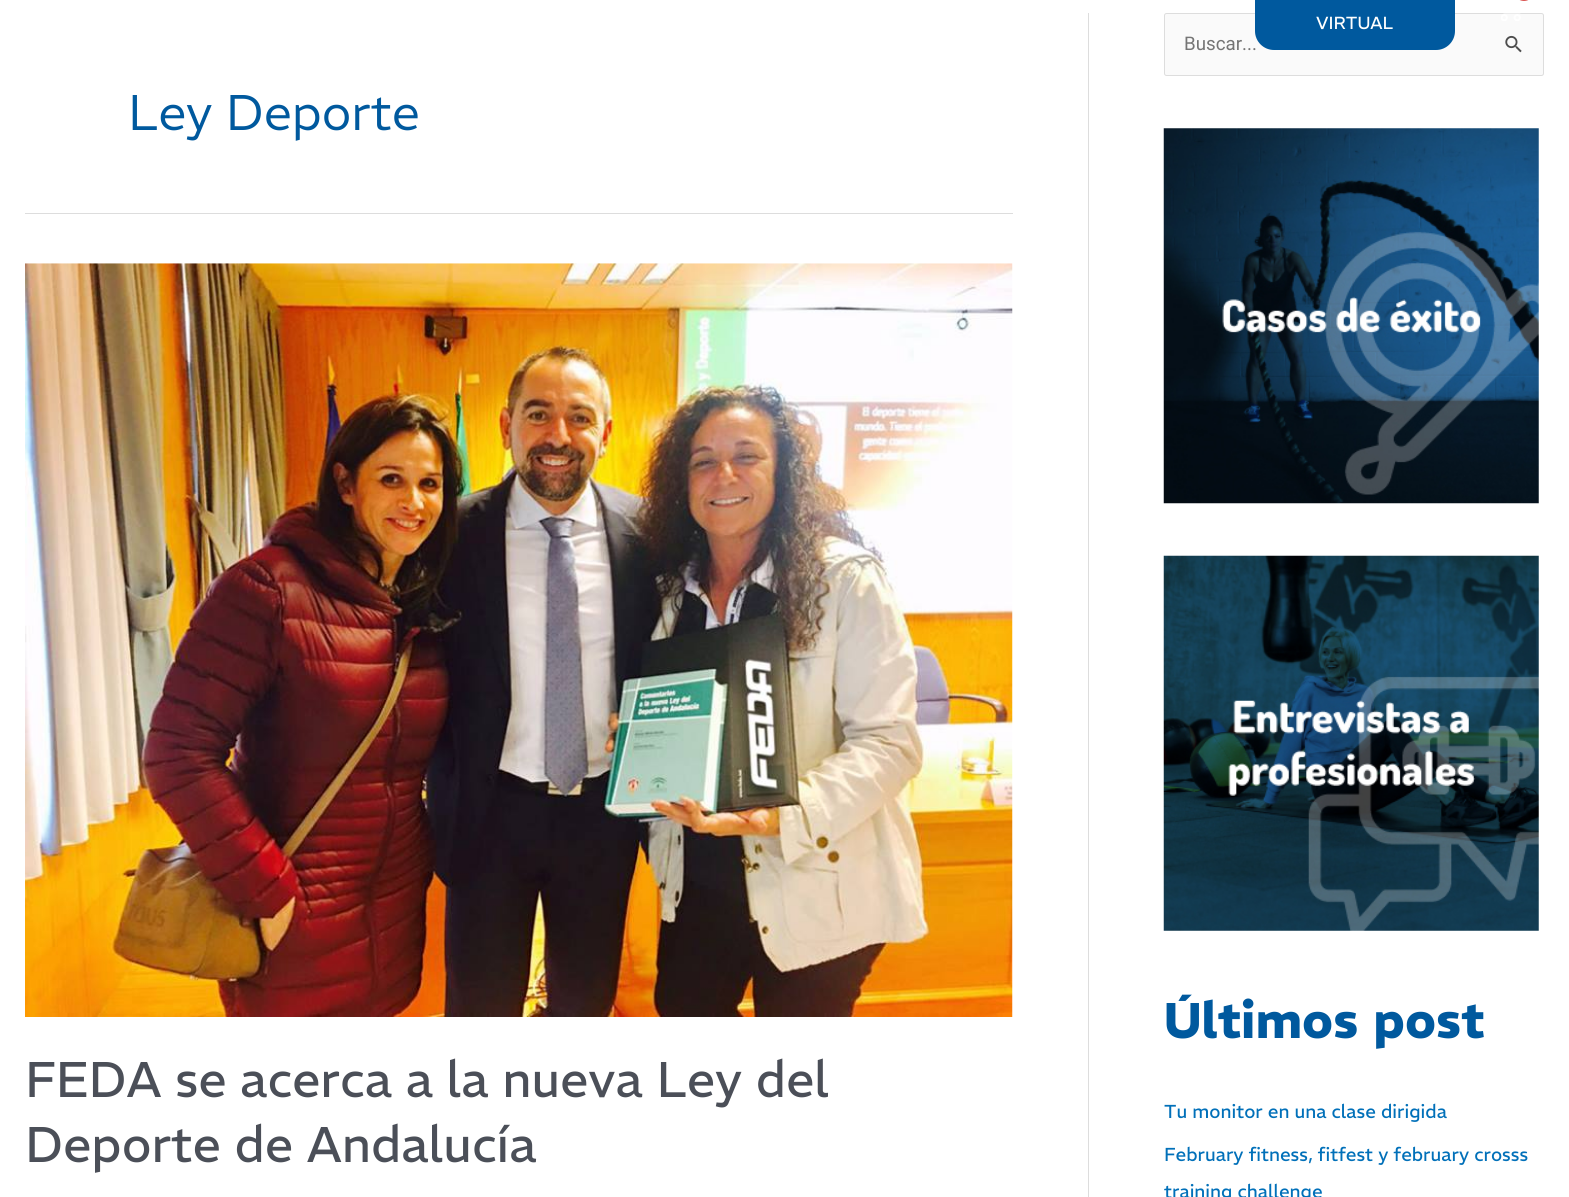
import math
import cairo

surface = cairo.ImageSurface(cairo.FORMAT_RGB24, 1569, 1197)
cr = cairo.Context(surface)
options = cairo.FontOptions()
options.set_hint_metrics(cairo.HINT_METRICS_OFF)
options.set_hint_style(cairo.HINT_STYLE_NONE)
cr.set_font_options(options)
cr.set_miter_limit(4)


def rgb(code):
    cr.set_source_rgb(*(v / 255 for v in bytes.fromhex(code[-6:])))


def rrect(x, y, w, h, r):
    cr.new_sub_path()
    for i, (u, v) in enumerate([(x + w - r, y + h - r), (x + r, y + h - r), (x + r, y + r), (x + w - r, y + r)]):
        cr.arc(u, v, r, i * math.pi / 2, (i + 1) * math.pi / 2)
    cr.close_path()


def image(path, x, y, w, h):
    cr.save()
    cr.set_source_surface(cairo.ImageSurface.create_from_png(path), x, y)
    cr.rectangle(x, y, w, h)
    cr.fill()
    cr.restore()


rgb("#ffffff")
cr.paint()
rgb("#d9534f")
rrect(1514, -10, 20, 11, 10)
cr.fill()
rgb("#fafafa")
rrect(1164.5, 13.5, 379, 62, 2)
cr.fill_preserve()
rgb("#dddddd")
cr.set_line_width(1)
cr.stroke()
image("img/1.png", 1501, 13, 20, 8)
cr.rectangle(25, 213, 988, 1)
cr.fill()
image("img/2.png", 25, 263, 988, 754)
cr.rectangle(1088, 13, 1, 1184)
cr.fill()
image("img/3.png", 1505, 35, 17, 18)
image("img/4.png", 1163, 128, 376, 376)
image("img/5.png", 1163, 555, 376, 376)
cr.select_font_face("REM Light")
cr.set_font_size(50)
rgb("#00599e")
cr.move_to(128, 130)
cr.show_text("Ley Deporte")
cr.select_font_face("REM")
rgb("#4b4f58")
cr.move_to(25, 1097)
cr.show_text("FEDA se acerca a la nueva Ley del")
cr.move_to(25, 1162)
cr.show_text("Deporte de Andalucía")
cr.select_font_face("Roboto")
cr.set_font_size(18.75)
rgb("#757575")
cr.move_to(1184, 50)
cr.show_text("Buscar...")
rgb("#00599e")
rrect(1255, -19, 200, 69, 19)
cr.fill()
cr.select_font_face("REM")
cr.set_font_size(17.5)
rgb("#ffffff")
cr.move_to(1316, 29)
cr.show_text("VIRTUAL")
cr.select_font_face("REM", cairo.FONT_SLANT_NORMAL, cairo.FONT_WEIGHT_BOLD)
cr.set_font_size(50)
rgb("#00599e")
cr.move_to(1164, 1038)
cr.show_text("Últimos post")
cr.select_font_face("REM")
cr.set_font_size(18.75)
rgb("#0170b9")
for x, y, s in [
    (1164, 1118, "Tu monitor en una clase dirigida"),
    (1164, 1161, "February fitness, fitfest y february crosss"),
    (1164, 1198, "training challenge"),
]:
    cr.move_to(x, y)
    cr.show_text(s)
surface.write_to_png("page.png")
